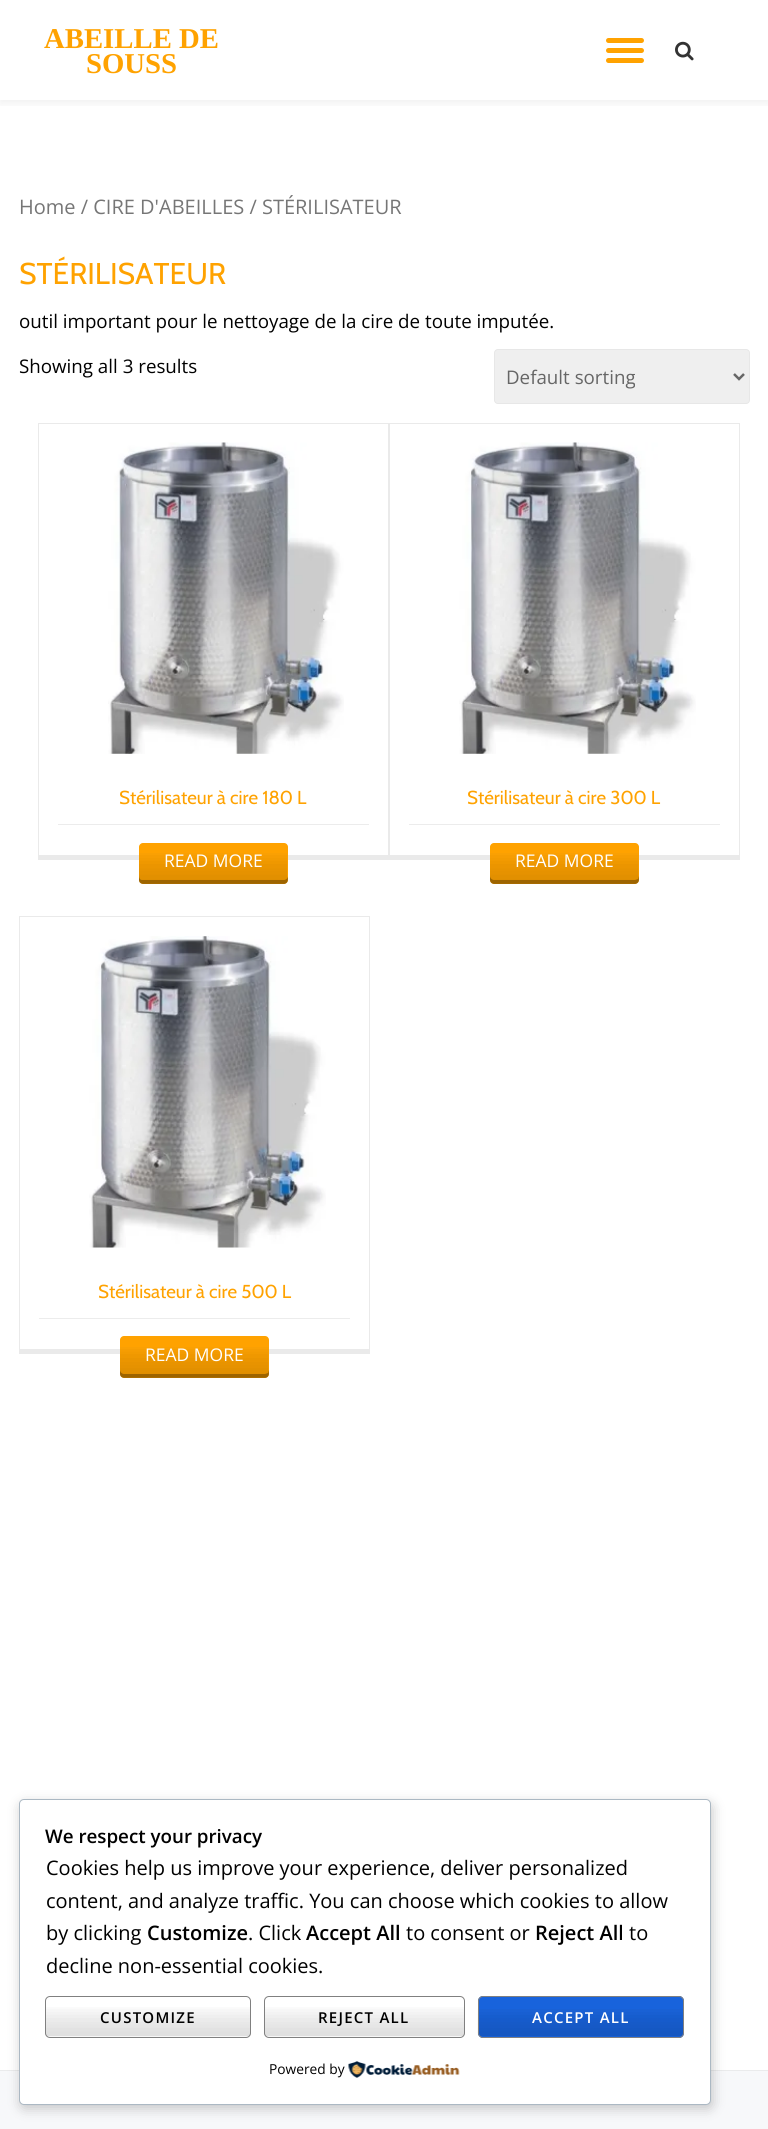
import math
import cairo

surface = cairo.ImageSurface(cairo.FORMAT_RGB24, 768, 2129)
cr = cairo.Context(surface)
options = cairo.FontOptions()
options.set_hint_metrics(cairo.HINT_METRICS_OFF)
options.set_hint_style(cairo.HINT_STYLE_NONE)
cr.set_font_options(options)
cr.set_miter_limit(4)


def rgb(code):
    cr.set_source_rgb(*(v / 255 for v in bytes.fromhex(code[-6:])))


def tracked(x, y, s, letter, word):
    cr.move_to(x, y)
    for ch in s:
        cr.show_text(ch)
        cr.rel_move_to(letter + word * (ch == ' '), 0)


def rrect(x, y, w, h, r):
    cr.new_sub_path()
    for i, (u, v) in enumerate([(x + w - r, y + h - r), (x + r, y + h - r), (x + r, y + r), (x + w - r, y + r)]):
        cr.arc(u, v, r, i * math.pi / 2, (i + 1) * math.pi / 2)
    cr.close_path()


def soft_shadow(x, y, w, h, r, blur, alpha):
    cr.push_group_with_content(cairo.CONTENT_ALPHA)
    cr.set_operator(cairo.OPERATOR_SOURCE)
    for i in range(15, -16, -2):
        e = blur * i / 6
        if min(w, h) + 2 * e > 0:
            cr.set_source_rgba(0, 0, 0, alpha * math.erfc((i - 1) / 8.5) / 2)
            rrect(x - e, y - e, w + 2 * e, h + 2 * e, max(0, min(r + e + blur * .6, min(w, h) / 2 + e)))
            cr.fill()
    cr.mask(cr.pop_group())


def image(path, x, y, w, h):
    cr.save()
    cr.set_source_surface(cairo.ImageSurface.create_from_png(path), x, y)
    cr.rectangle(x, y, w, h)
    cr.fill()
    cr.restore()


rgb("#ffffff")
cr.paint()
cr.save()
cr.rectangle(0, 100, 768, 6)
cr.clip()
rgb("#323232")
soft_shadow(0, 3, 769, 100, 0, 5, 0.08)
cr.restore()
rgb("#ffa200")
rrect(606, 38, 38, 5, 2.5)
cr.fill()
rrect(606, 48, 38, 5, 2.5)
cr.fill()
rrect(606, 58, 38, 5, 2.5)
cr.fill()
image("img/1.png", 675, 41, 19, 20)
rgb("#efefef")
rrect(494.5, 349.5, 255, 54, 3.5)
cr.fill_preserve()
rgb("#e7e7e7")
cr.set_line_width(1)
cr.stroke()
cr.new_path()
cr.move_to(734, 374)
cr.line_to(739, 379)
cr.line_to(744, 374)
rgb("#666666")
cr.set_line_width(2.5)
cr.stroke()
for x, y, w, h, color in [
    (38, 423, 702, 1, "#eaeaea"),
    (388, 423, 1, 437, "#eaeaea"),
    (38, 855, 351, 5, "#eaeaea"),
    (38, 423, 1, 437, "#eaeaea"),
    (58, 824, 311, 1, "#ececec"),
]:
    rgb(color)
    cr.rectangle(x, y, w, h)
    cr.fill()
image("img/2.png", 108, 442, 236, 312)
rgb("#ffa200")
rrect(139, 843, 149, 41, 4)
cr.fill()
image("img/3.png", 139, 853, 149, 31)
cr.set_source_rgba(0, 0, 0, 0.3)
cr.new_path()
cr.move_to(139, 876)
cr.line_to(139, 880)
cr.curve_to(139, 882, 141, 884, 143, 884)
cr.line_to(284, 884)
cr.curve_to(286, 884, 288, 882, 288, 880)
cr.line_to(288, 876)
cr.curve_to(288, 878, 286, 880, 284, 880)
cr.line_to(142, 880)
cr.curve_to(140, 880, 139, 878, 139, 876)
cr.close_path()
cr.fill()
for x, y, w, h, color in [
    (739, 423, 1, 437, "#eaeaea"),
    (389, 855, 351, 5, "#eaeaea"),
    (389, 423, 1, 437, "#eaeaea"),
    (409, 824, 311, 1, "#ececec"),
]:
    rgb(color)
    cr.rectangle(x, y, w, h)
    cr.fill()
image("img/4.png", 459, 442, 237, 312)
rgb("#ffa200")
rrect(490, 843, 149, 41, 4)
cr.fill()
image("img/5.png", 490, 853, 149, 31)
cr.set_source_rgba(0, 0, 0, 0.3)
cr.new_path()
cr.move_to(490, 876)
cr.line_to(490, 880)
cr.curve_to(490, 882, 492, 884, 494, 884)
cr.line_to(635, 884)
cr.curve_to(637, 884, 639, 882, 639, 880)
cr.line_to(639, 876)
cr.line_to(638, 879)
cr.line_to(635, 880)
cr.line_to(494, 880)
cr.curve_to(492, 880, 490, 878, 490, 876)
cr.close_path()
cr.fill()
for x, y, w, h, color in [
    (19, 916, 351, 1, "#eaeaea"),
    (369, 916, 1, 438, "#eaeaea"),
    (19, 1349, 351, 5, "#eaeaea"),
    (19, 916, 1, 438, "#eaeaea"),
    (39, 1318, 311, 1, "#ececec"),
]:
    rgb(color)
    cr.rectangle(x, y, w, h)
    cr.fill()
image("img/6.png", 89, 936, 237, 312)
rgb("#ffa200")
rrect(120, 1336, 149, 42, 4)
cr.fill()
image("img/7.png", 120, 1347, 149, 31)
cr.set_source_rgba(0, 0, 0, 0.3)
cr.new_path()
cr.move_to(120, 1370)
cr.line_to(120, 1374)
cr.curve_to(120, 1376, 122, 1378, 124, 1378)
cr.line_to(265, 1378)
cr.curve_to(267, 1378, 269, 1376, 269, 1374)
cr.line_to(269, 1370)
cr.line_to(268, 1373)
cr.line_to(265, 1374)
cr.line_to(124, 1374)
cr.curve_to(122, 1374, 120, 1372, 120, 1370)
cr.close_path()
cr.fill()
rgb("#f7f8fa")
cr.rectangle(0, 2071, 768, 58)
cr.fill()
rgb("#eaebec")
cr.rectangle(0, 2070, 768, 1)
cr.fill()
rgb("#000000")
soft_shadow(20, 1803, 693, 306, 5, 6, 0.2)
rgb("#ffffff")
rrect(19.5, 1799.5, 691, 305, 4.5)
cr.fill_preserve()
rgb("#abb8c3")
cr.set_line_width(1)
cr.stroke()
image("img/8.png", 45, 2007, 206, 30)
rrect(45.5, 1996.5, 205, 41, 4.5)
rgb("#808080")
cr.stroke()
image("img/9.png", 264, 2007, 201, 30)
rrect(264.5, 1996.5, 200, 41, 4.5)
cr.stroke()
rgb("#1863dc")
rrect(478, 1996, 206, 42, 5)
cr.fill()
image("img/10.png", 477, 2009, 207, 28)
rrect(478.5, 1996.5, 205, 41, 4.5)
rgb("#808080")
cr.stroke()
image("img/11.png", 348, 2061, 112, 17)
cr.select_font_face("Liberation Serif", cairo.FONT_SLANT_NORMAL, cairo.FONT_WEIGHT_BOLD)
cr.set_font_size(28.75)
rgb("#ffa200")
cr.move_to(44, 48)
cr.show_text("ABEILLE DE")
cr.move_to(86, 73)
cr.show_text("SOUSS")
cr.select_font_face("Open Sans")
cr.set_font_size(20)
rgb("#767676")
cr.move_to(19, 214)
cr.show_text("Home / CIRE D'ABEILLES / STÉRILISATEUR")
cr.select_font_face("Cabin")
cr.set_font_size(30)
rgb("#ffa200")
cr.move_to(19, 284)
cr.show_text("STÉRILISATEUR")
cr.select_font_face("Open Sans")
cr.set_font_size(18.75)
rgb("#000000")
cr.move_to(19, 328)
cr.show_text("outil important pour le nettoyage de la cire de toute imputée.")
cr.move_to(19, 373)
cr.show_text("Showing all 3 results")
rgb("#666666")
cr.move_to(506, 384)
cr.show_text("Default sorting")
cr.select_font_face("Cabin")
rgb("#ffa200")
cr.move_to(119, 804)
cr.show_text("Stérilisateur à cire 180 L")
cr.select_font_face("Open Sans")
cr.set_font_size(17.5)
rgb("#ffffff")
cr.move_to(164, 867)
cr.show_text("READ MORE")
cr.select_font_face("Cabin")
cr.set_font_size(18.75)
rgb("#ffa200")
cr.move_to(467, 804)
cr.show_text("Stérilisateur à cire 300 L")
cr.select_font_face("Open Sans")
cr.set_font_size(17.5)
rgb("#ffffff")
cr.move_to(515, 867)
cr.show_text("READ MORE")
cr.select_font_face("Cabin")
cr.set_font_size(18.75)
rgb("#ffa200")
cr.move_to(98, 1298)
cr.show_text("Stérilisateur à cire 500 L")
cr.select_font_face("Open Sans")
cr.set_font_size(17.5)
rgb("#ffffff")
cr.move_to(145, 1361)
cr.show_text("READ MORE")
cr.select_font_face("Open Sans SemiBold")
cr.set_font_size(18.75)
rgb("#000000")
cr.move_to(45, 1843)
cr.show_text("We respect your privacy")
cr.select_font_face("Open Sans")
cr.set_font_size(20)
for x, y, s in [
    (46, 1875, "Cookies help us improve your experience, deliver personalized"),
    (46, 1908, "content, and analyze traffic. You can choose which cookies to allow"),
    (46, 1940, "by clicking"),
]:
    cr.move_to(x, y)
    cr.show_text(s)
cr.select_font_face("Open Sans SemiBold")
cr.move_to(147, 1940)
cr.show_text("Customize")
cr.select_font_face("Open Sans")
cr.move_to(248, 1940)
cr.show_text(". Click")
cr.select_font_face("Open Sans SemiBold")
cr.move_to(306, 1940)
cr.show_text("Accept All")
cr.select_font_face("Open Sans")
cr.move_to(406, 1940)
cr.show_text("to consent or")
cr.select_font_face("Open Sans SemiBold")
cr.move_to(535, 1940)
cr.show_text("Reject All")
cr.select_font_face("Open Sans")
cr.move_to(629, 1940)
cr.show_text("to")
cr.move_to(46, 1973)
cr.show_text("decline non-essential cookies.")
cr.select_font_face("Open Sans SemiBold")
cr.set_font_size(15)
tracked(100, 2023, "CUSTOMIZE", 1.25, 0)
tracked(318, 2023, "REJECT ALL", 1.25, 0)
rgb("#ffffff")
tracked(532, 2023, "ACCEPT ALL", 1.25, 0)
cr.select_font_face("Open Sans")
cr.set_font_size(13.75)
rgb("#000000")
cr.move_to(269, 2074)
cr.show_text("Powered by")
surface.write_to_png("page.png")
